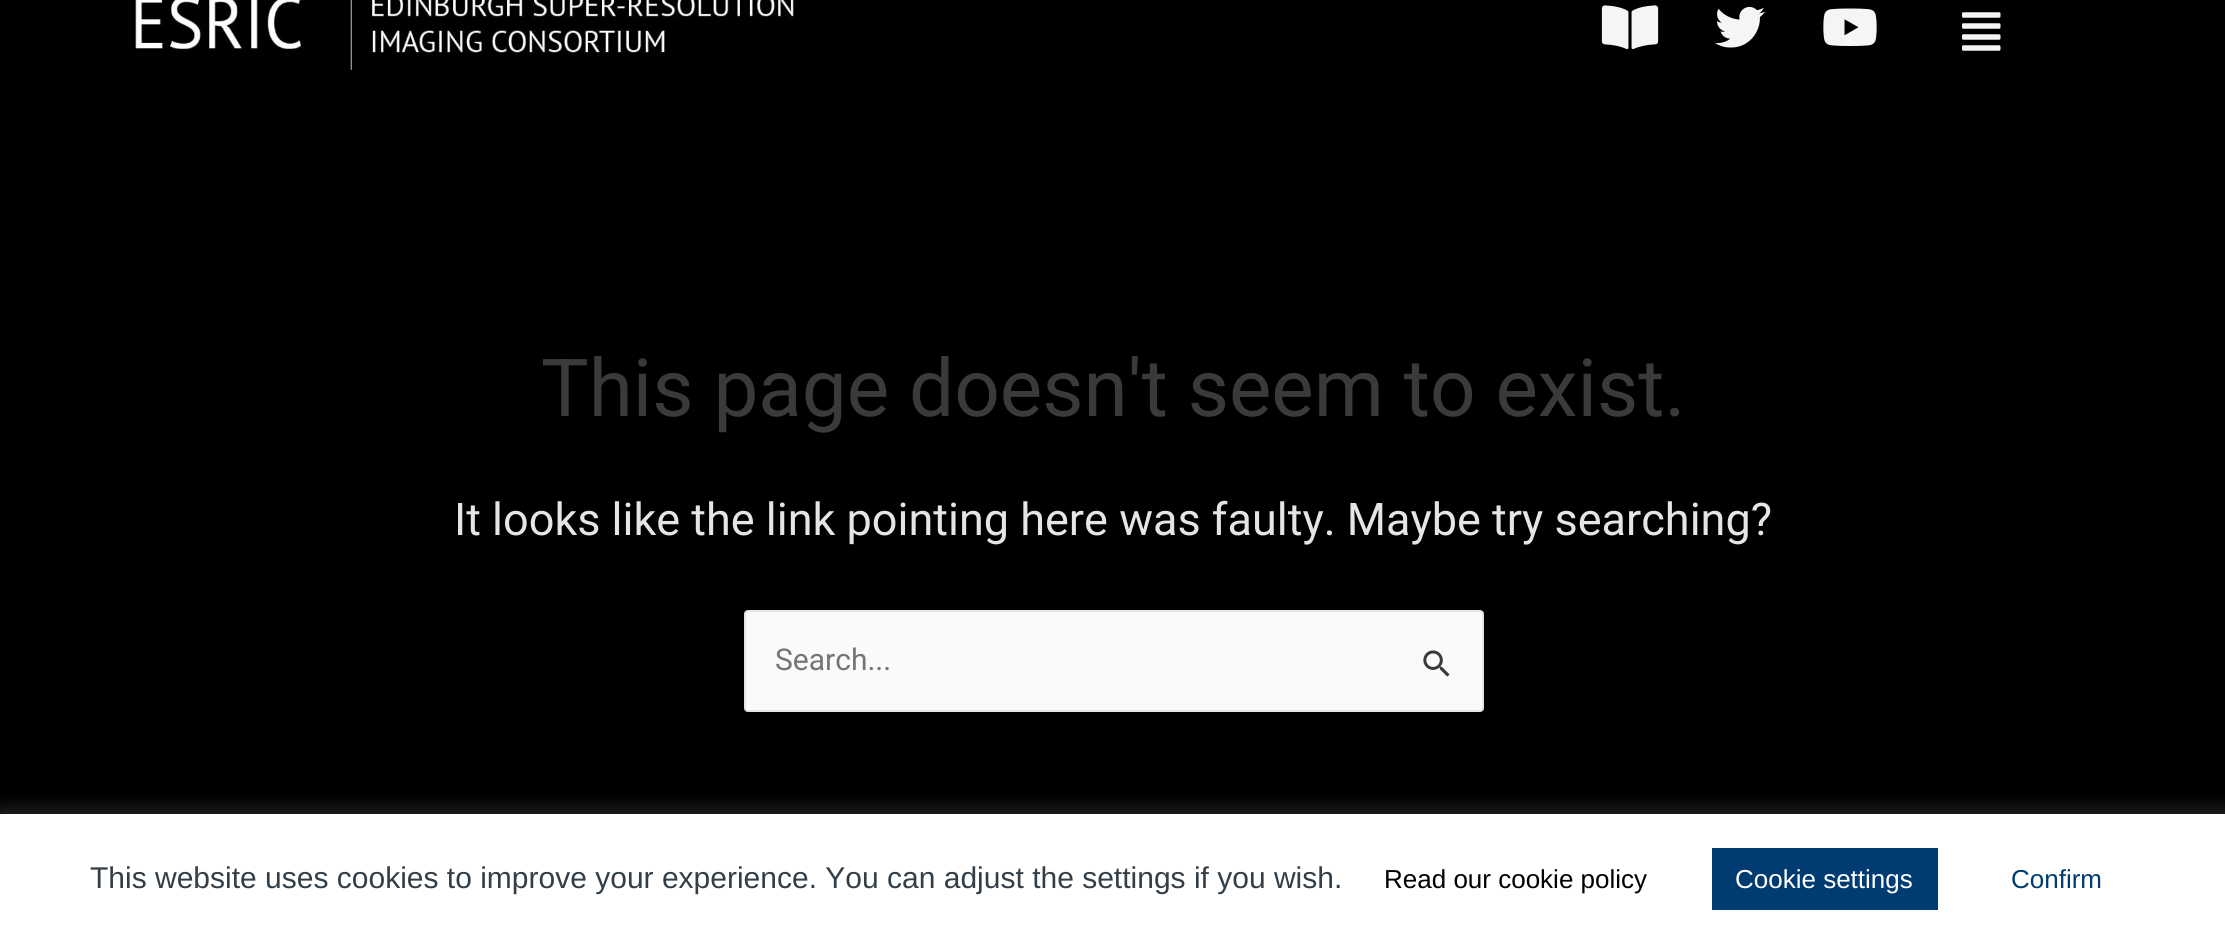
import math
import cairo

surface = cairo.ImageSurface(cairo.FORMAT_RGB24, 2225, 943)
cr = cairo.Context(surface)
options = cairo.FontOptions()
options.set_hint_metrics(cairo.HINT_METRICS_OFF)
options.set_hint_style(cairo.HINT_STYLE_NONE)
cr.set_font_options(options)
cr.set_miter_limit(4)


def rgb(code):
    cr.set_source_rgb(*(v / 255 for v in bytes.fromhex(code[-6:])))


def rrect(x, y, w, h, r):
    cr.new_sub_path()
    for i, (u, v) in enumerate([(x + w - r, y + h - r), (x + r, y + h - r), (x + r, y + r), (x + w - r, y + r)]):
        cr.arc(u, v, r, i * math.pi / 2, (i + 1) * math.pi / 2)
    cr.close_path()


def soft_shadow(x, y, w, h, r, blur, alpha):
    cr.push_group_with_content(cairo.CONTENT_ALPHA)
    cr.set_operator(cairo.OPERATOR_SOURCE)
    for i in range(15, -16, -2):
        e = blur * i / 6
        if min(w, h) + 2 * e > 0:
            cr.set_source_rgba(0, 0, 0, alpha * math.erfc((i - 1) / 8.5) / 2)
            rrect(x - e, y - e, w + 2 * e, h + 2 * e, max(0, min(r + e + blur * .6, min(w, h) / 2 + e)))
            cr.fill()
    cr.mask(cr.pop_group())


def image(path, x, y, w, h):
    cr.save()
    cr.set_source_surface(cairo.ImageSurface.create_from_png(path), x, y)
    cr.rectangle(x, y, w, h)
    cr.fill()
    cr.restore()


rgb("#000000")
cr.paint()
image("img/1.png", 135, 0, 659, 70)
image("img/2.png", 1601, 5, 58, 45)
image("img/3.png", 1715, 6, 50, 42)
image("img/4.png", 1823, 8, 54, 38)
image("img/5.png", 1962, 12, 39, 39)
rgb("#fafafa")
rrect(745, 611, 738, 100, 3)
cr.fill_preserve()
rgb("#e5e5e5")
cr.stroke()
image("img/6.png", 1423, 650, 27, 27)
rgb("#acabab")
soft_shadow(0, 812, 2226, 130, 0, 10, 0.3)
rgb("#ffffff")
cr.rectangle(0, 814, 2225, 129)
cr.fill()
rgb("#003c71")
cr.rectangle(1712, 848, 226, 62)
cr.fill()
cr.select_font_face("Roboto")
cr.set_font_size(80)
rgb("#3a3a3a")
cr.move_to(541, 416)
cr.show_text("This page doesn't seem to exist.")
cr.set_font_size(45)
rgb("#e5e5e5")
cr.move_to(454, 535)
cr.show_text("It looks like the link pointing here was faulty. Maybe try searching?")
cr.set_font_size(30)
rgb("#757575")
cr.move_to(775, 670)
cr.show_text("Search...")
cr.select_font_face("Liberation Sans")
rgb("#333f48")
cr.move_to(90, 888)
cr.show_text("This website uses cookies to improve your experience. You can adjust the settings if you wish.")
cr.set_font_size(26)
rgb("#020000")
cr.move_to(1384, 888)
cr.show_text("Read our cookie policy")
rgb("#ffffff")
cr.move_to(1735, 888)
cr.show_text("Cookie settings")
rgb("#003c71")
cr.move_to(2011, 888)
cr.show_text("Confirm")
surface.write_to_png("page.png")
